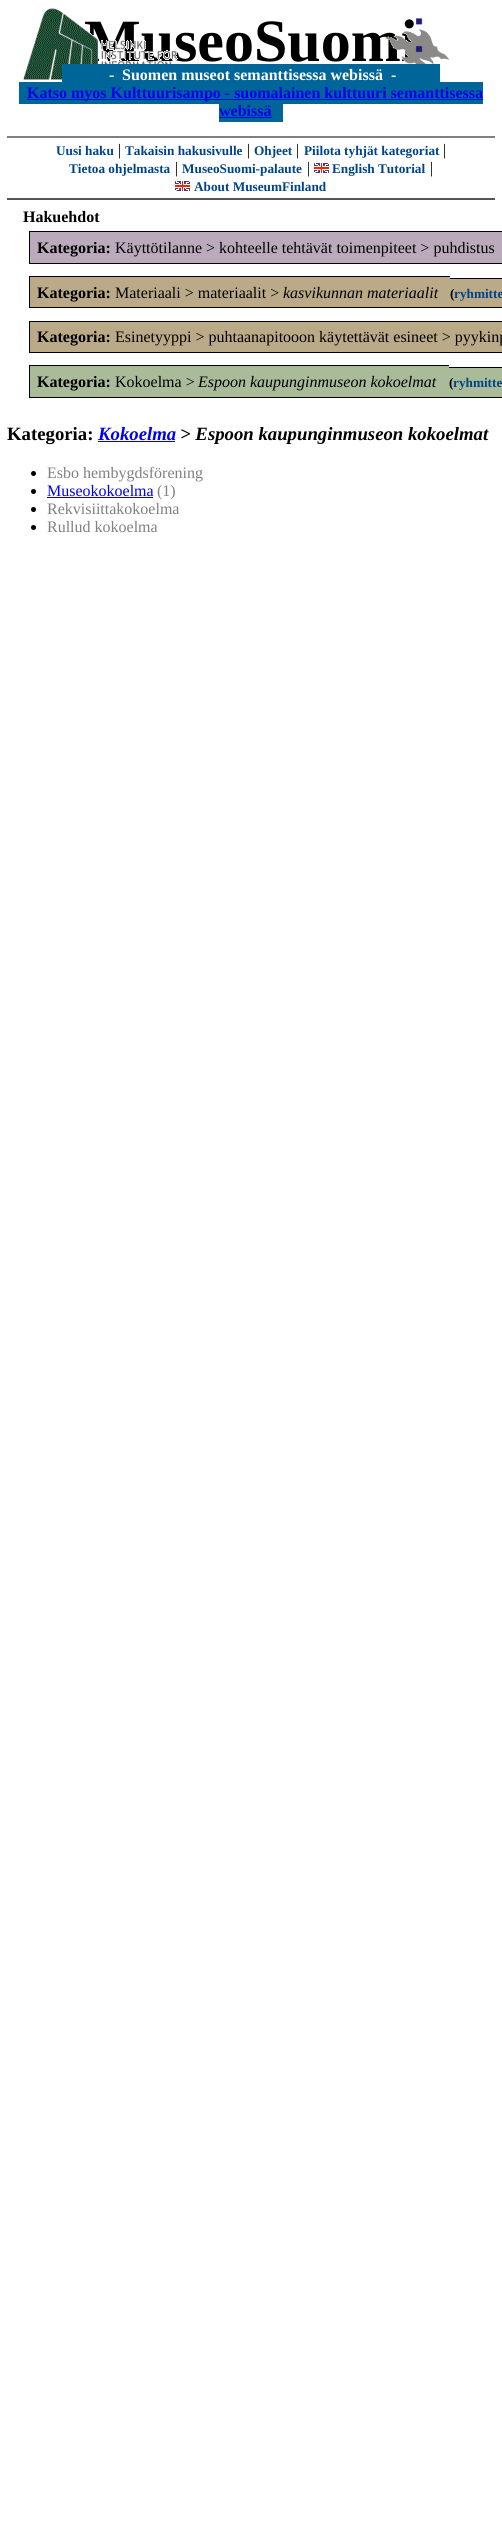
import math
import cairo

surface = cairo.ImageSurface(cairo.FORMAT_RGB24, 502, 2540)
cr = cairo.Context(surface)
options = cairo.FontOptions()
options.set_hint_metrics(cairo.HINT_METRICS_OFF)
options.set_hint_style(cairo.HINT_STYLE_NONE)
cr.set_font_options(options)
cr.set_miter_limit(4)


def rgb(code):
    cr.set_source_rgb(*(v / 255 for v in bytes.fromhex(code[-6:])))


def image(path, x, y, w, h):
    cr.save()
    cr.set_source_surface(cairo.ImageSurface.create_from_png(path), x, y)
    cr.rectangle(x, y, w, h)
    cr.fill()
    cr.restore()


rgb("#ffffff")
cr.paint()
for x, y, w, h, color in [
    (19, 82, 464, 22, "#006699"),
    (27, 99, 456, 1, "#0000ee"),
    (219, 104, 64, 18, "#006699"),
    (219, 117, 53, 1, "#0000ee"),
    (7, 136, 488, 2, "#808080"),
    (7, 198, 488, 2, "#555555"),
]:
    rgb(color)
    cr.rectangle(x, y, w, h)
    cr.fill()
image("img/3.png", 314, 163, 15, 10)
image("img/3.png", 175, 181, 15, 10)
for x, y, w, h, color in [
    (30, 232, 472, 31, "#bbaabb"),
    (29, 231, 473, 1, "#000000"),
    (29, 263, 473, 1, "#000000"),
    (29, 231, 1, 33, "#000000"),
    (29, 276, 421, 1, "#000000"),
    (29, 307, 421, 1, "#000000"),
    (29, 276, 1, 32, "#000000"),
    (30, 277, 420, 30, "#bbaa88"),
    (450, 278, 4, 30, "#bbaa88"),
    (450, 278, 52, 1, "#000000"),
    (450, 307, 52, 1, "#000000"),
    (454, 279, 48, 28, "#bbaa88"),
    (30, 322, 472, 30, "#bbaa88"),
    (29, 321, 473, 1, "#000000"),
    (29, 352, 473, 1, "#000000"),
    (29, 321, 1, 32, "#000000"),
    (29, 365, 420, 1, "#000000"),
    (29, 397, 420, 1, "#000000"),
    (29, 365, 1, 33, "#000000"),
    (30, 366, 419, 31, "#aabb99"),
    (449, 367, 4, 31, "#aabb99"),
    (449, 367, 53, 1, "#000000"),
    (449, 397, 53, 1, "#000000"),
    (453, 368, 49, 29, "#aabb99"),
    (98, 441, 77, 1, "#0000ee"),
]:
    rgb(color)
    cr.rectangle(x, y, w, h)
    cr.fill()
rgb("#000000")
cr.arc(33.5, 473.5, 2.5, 0, 2 * math.pi)
cr.fill()
cr.arc(33.5, 491.5, 2.5, 0, 2 * math.pi)
cr.fill()
rgb("#0000ee")
cr.rectangle(47, 497, 106, 1)
cr.fill()
rgb("#000000")
cr.arc(33.5, 509.5, 2.5, 0, 2 * math.pi)
cr.fill()
cr.arc(33.5, 527.5, 2.5, 0, 2 * math.pi)
cr.fill()
cr.select_font_face("Liberation Serif", cairo.FONT_SLANT_NORMAL, cairo.FONT_WEIGHT_BOLD)
cr.set_font_size(60)
cr.move_to(84, 61)
cr.show_text("MuseoSuomi")
image("img/2.png", 385, 18, 65, 46)
image("img/1.png", 23, 8, 155, 72)
rgb("#006699")
cr.rectangle(62, 64, 378, 18)
cr.fill()
cr.set_font_size(16)
rgb("#ffffff")
for x, y, s in [
    (122, 80, "Suomen museot semanttisessa webissä"),
    (109, 80, "-"),
    (391, 80, "-"),
]:
    cr.move_to(x, y)
    cr.show_text(s)
rgb("#0000ee")
cr.move_to(27, 98)
cr.show_text("Katso myos Kulttuurisampo - suomalainen kulttuuri semanttisessa")
cr.move_to(219, 116)
cr.show_text("webissä")
cr.set_font_size(13.25)
rgb("#004488")
cr.move_to(56, 155)
cr.show_text("Uusi haku")
cr.select_font_face("Liberation Serif")
cr.set_font_size(16)
rgb("#000000")
cr.move_to(118, 155)
cr.show_text("|")
cr.select_font_face("Liberation Serif", cairo.FONT_SLANT_NORMAL, cairo.FONT_WEIGHT_BOLD)
cr.set_font_size(13.25)
rgb("#004488")
cr.move_to(125, 155)
cr.show_text("Takaisin hakusivulle")
cr.select_font_face("Liberation Serif")
cr.set_font_size(16)
rgb("#000000")
cr.move_to(247, 155)
cr.show_text("|")
cr.select_font_face("Liberation Serif", cairo.FONT_SLANT_NORMAL, cairo.FONT_WEIGHT_BOLD)
cr.set_font_size(13.25)
rgb("#004488")
cr.move_to(254, 155)
cr.show_text("Ohjeet")
cr.select_font_face("Liberation Serif")
cr.set_font_size(16)
rgb("#000000")
cr.move_to(296, 155)
cr.show_text("|")
cr.select_font_face("Liberation Serif", cairo.FONT_SLANT_NORMAL, cairo.FONT_WEIGHT_BOLD)
cr.set_font_size(13.25)
rgb("#004488")
cr.move_to(304, 155)
cr.show_text("Piilota tyhjät kategoriat")
cr.select_font_face("Liberation Serif")
cr.set_font_size(16)
rgb("#000000")
cr.move_to(443, 155)
cr.show_text("|")
cr.select_font_face("Liberation Serif", cairo.FONT_SLANT_NORMAL, cairo.FONT_WEIGHT_BOLD)
cr.set_font_size(13.25)
rgb("#004488")
cr.move_to(69, 173)
cr.show_text("Tietoa ohjelmasta")
cr.select_font_face("Liberation Serif")
cr.set_font_size(16)
rgb("#000000")
cr.move_to(175, 173)
cr.show_text("|")
cr.select_font_face("Liberation Serif", cairo.FONT_SLANT_NORMAL, cairo.FONT_WEIGHT_BOLD)
cr.set_font_size(13.25)
rgb("#004488")
cr.move_to(182, 173)
cr.show_text("MuseoSuomi-palaute")
cr.select_font_face("Liberation Serif")
cr.set_font_size(16)
rgb("#000000")
cr.move_to(307, 173)
cr.show_text("|")
cr.select_font_face("Liberation Serif", cairo.FONT_SLANT_NORMAL, cairo.FONT_WEIGHT_BOLD)
cr.set_font_size(13.25)
rgb("#004488")
cr.move_to(332, 173)
cr.show_text("English Tutorial")
cr.select_font_face("Liberation Serif")
cr.set_font_size(16)
rgb("#000000")
cr.move_to(430, 173)
cr.show_text("|")
cr.select_font_face("Liberation Serif", cairo.FONT_SLANT_NORMAL, cairo.FONT_WEIGHT_BOLD)
cr.set_font_size(13.25)
rgb("#004488")
cr.move_to(194, 191)
cr.show_text("About MuseumFinland")
cr.set_font_size(16)
rgb("#000000")
cr.move_to(23, 222)
cr.show_text("Hakuehdot")
cr.move_to(37, 253)
cr.show_text("Kategoria:")
cr.select_font_face("Liberation Serif")
cr.move_to(115, 253)
cr.show_text("Käyttötilanne > kohteelle tehtävät toimenpiteet > puhdistus")
cr.select_font_face("Liberation Serif", cairo.FONT_SLANT_NORMAL, cairo.FONT_WEIGHT_BOLD)
cr.move_to(37, 298)
cr.show_text("Kategoria:")
cr.select_font_face("Liberation Serif")
cr.move_to(115, 298)
cr.show_text("Materiaali > materiaalit >")
cr.select_font_face("Liberation Serif", cairo.FONT_SLANT_ITALIC)
cr.move_to(283, 298)
cr.show_text("kasvikunnan materiaalit")
cr.select_font_face("Liberation Serif", cairo.FONT_SLANT_NORMAL, cairo.FONT_WEIGHT_BOLD)
cr.set_font_size(13.25)
cr.move_to(450, 298)
cr.show_text("(")
rgb("#004488")
cr.move_to(454, 298)
cr.show_text("ryhmitte")
cr.set_font_size(16)
rgb("#000000")
cr.move_to(37, 342)
cr.show_text("Kategoria:")
cr.select_font_face("Liberation Serif")
cr.move_to(115, 342)
cr.show_text("Esinetyyppi > puhtaanapitooon käytettävät esineet > pyykinp")
cr.select_font_face("Liberation Serif", cairo.FONT_SLANT_NORMAL, cairo.FONT_WEIGHT_BOLD)
cr.move_to(37, 387)
cr.show_text("Kategoria:")
cr.select_font_face("Liberation Serif")
cr.move_to(115, 387)
cr.show_text("Kokoelma >")
cr.select_font_face("Liberation Serif", cairo.FONT_SLANT_ITALIC)
cr.move_to(198, 387)
cr.show_text("Espoon kaupunginmuseon kokoelmat")
cr.select_font_face("Liberation Serif", cairo.FONT_SLANT_NORMAL, cairo.FONT_WEIGHT_BOLD)
cr.set_font_size(13.25)
cr.move_to(449, 387)
cr.show_text("(")
rgb("#004488")
cr.move_to(453, 387)
cr.show_text("ryhmitte")
cr.set_font_size(18.75)
rgb("#000000")
cr.move_to(7, 440)
cr.show_text("Kategoria:")
cr.select_font_face("Liberation Serif", cairo.FONT_SLANT_ITALIC, cairo.FONT_WEIGHT_BOLD)
rgb("#0000ee")
cr.move_to(98, 440)
cr.show_text("Kokoelma")
rgb("#000000")
cr.move_to(180, 440)
cr.show_text("> Espoon kaupunginmuseon kokoelmat")
cr.select_font_face("Liberation Serif")
cr.set_font_size(16)
rgb("#808080")
cr.move_to(47, 478)
cr.show_text("Esbo hembygdsförening")
rgb("#0000ee")
cr.move_to(47, 496)
cr.show_text("Museokokoelma")
rgb("#808080")
for x, y, s in [
    (157, 496, "(1)"),
    (47, 514, "Rekvisiittakokoelma"),
    (47, 532, "Rullud kokoelma"),
]:
    cr.move_to(x, y)
    cr.show_text(s)
surface.write_to_png("page.png")
